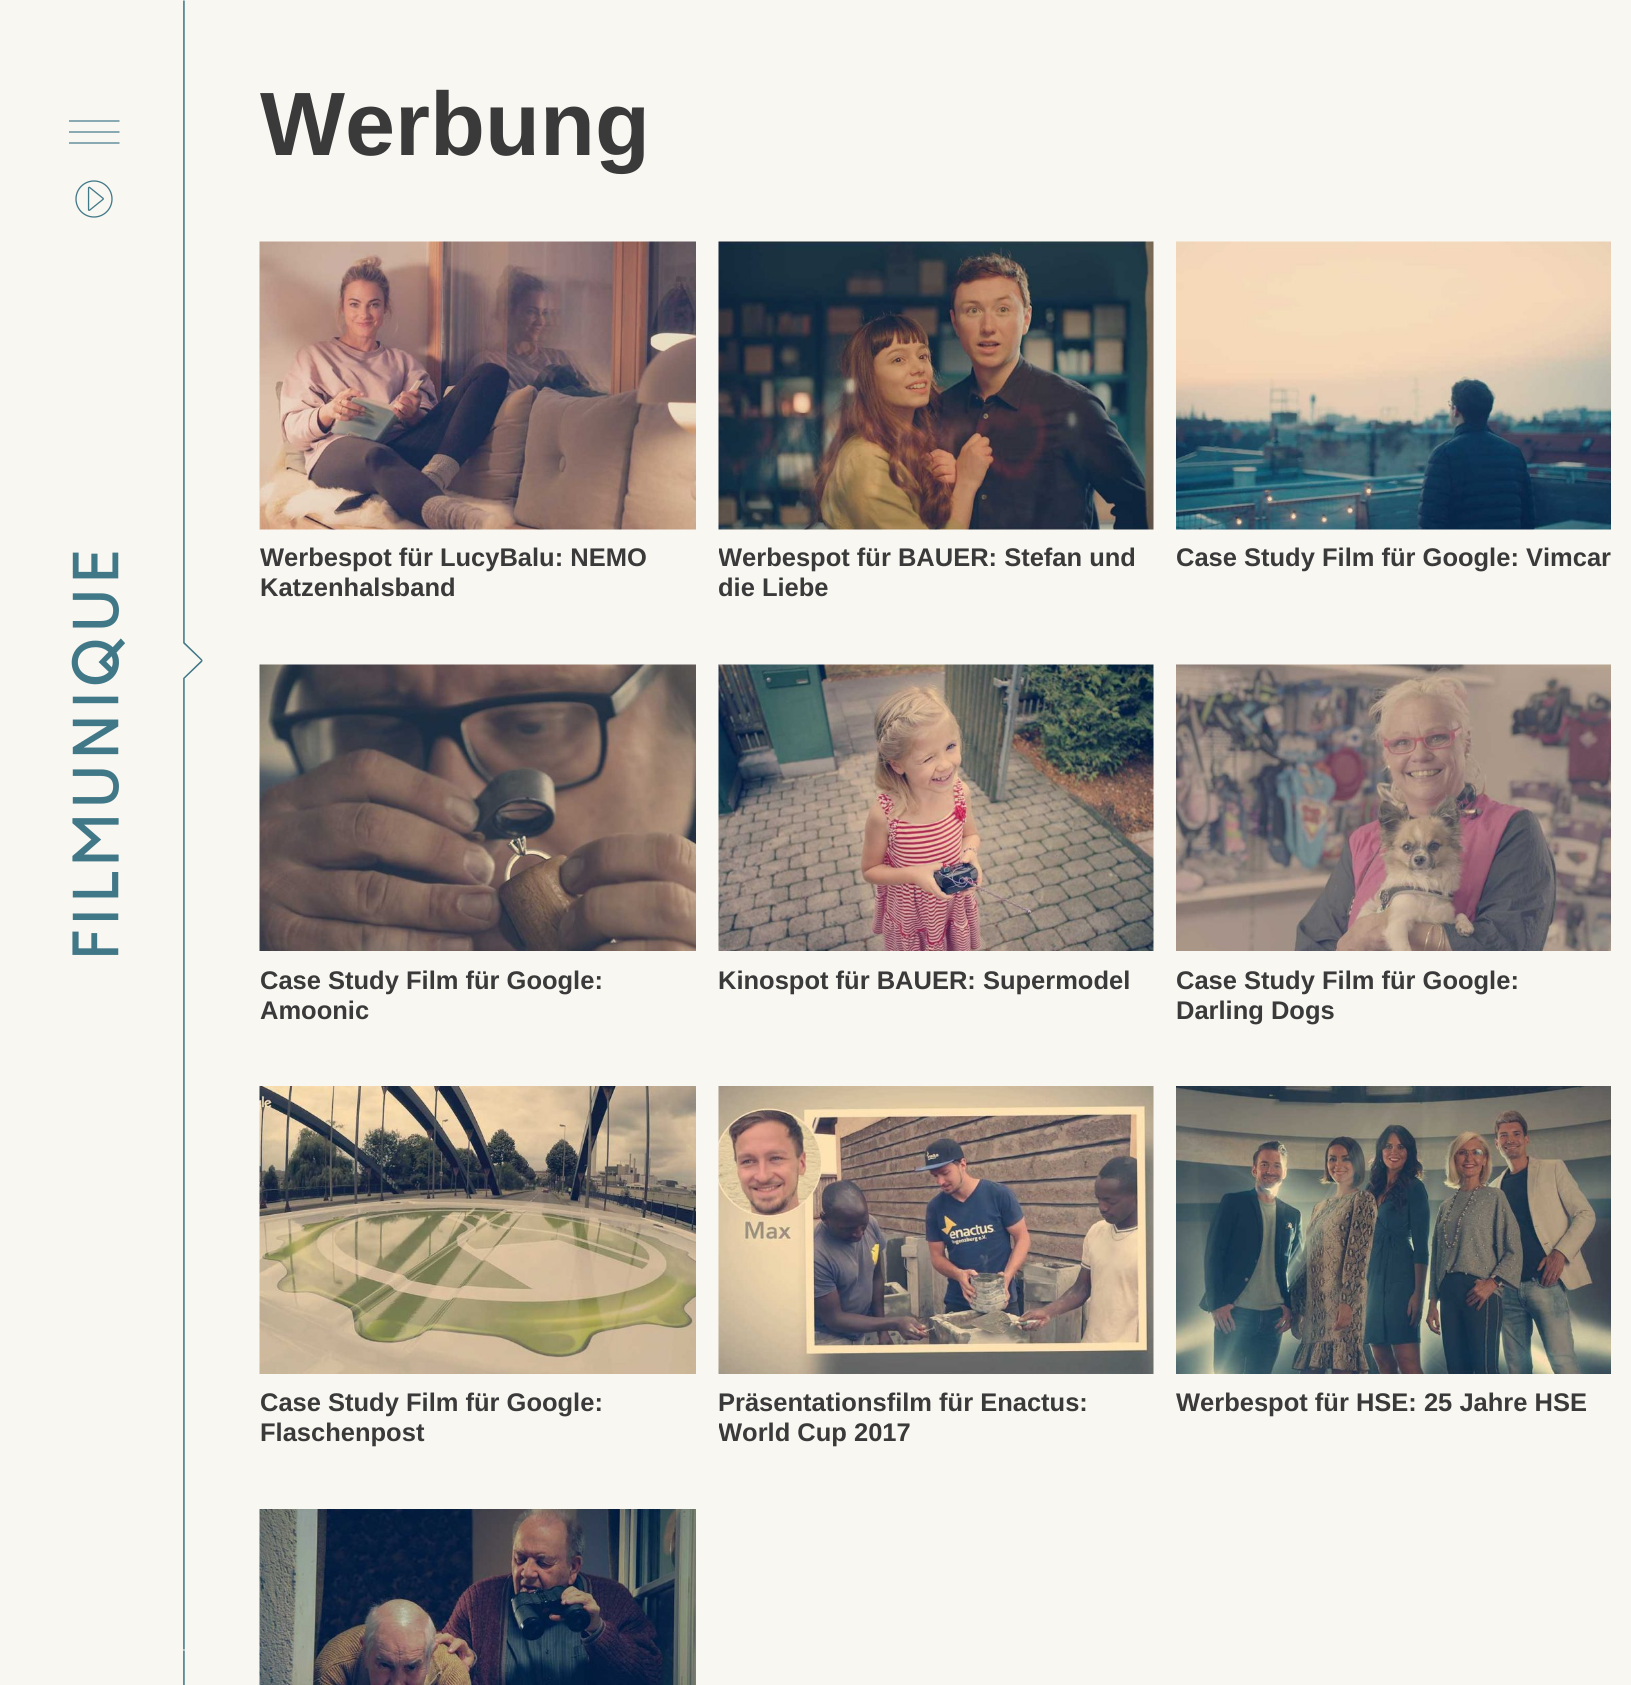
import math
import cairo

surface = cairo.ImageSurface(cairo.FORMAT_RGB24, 1631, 1685)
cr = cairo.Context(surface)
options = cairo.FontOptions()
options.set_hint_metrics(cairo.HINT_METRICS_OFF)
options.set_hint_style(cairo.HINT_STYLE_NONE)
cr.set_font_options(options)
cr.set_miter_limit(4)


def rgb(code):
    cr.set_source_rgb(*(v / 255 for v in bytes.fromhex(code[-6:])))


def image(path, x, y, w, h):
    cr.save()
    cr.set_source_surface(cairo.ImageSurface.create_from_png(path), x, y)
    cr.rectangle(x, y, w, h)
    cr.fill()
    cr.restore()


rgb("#f8f7f2")
cr.paint()
image("img/1.png", 183, 0, 20, 1685)
cr.new_path()
cr.move_to(69, 121)
cr.line_to(119.5, 121)
cr.move_to(69, 143)
cr.line_to(119.5, 143)
cr.move_to(69, 132)
cr.line_to(119.5, 132)
rgb("#417887")
cr.set_line_width(1.2)
cr.stroke()
image("img/2.png", 75, 180, 38, 38)
image("img/3.png", 71, 552, 55, 403)
image("img/4.png", 259, 241, 437, 289)
image("img/5.png", 718, 241, 436, 289)
image("img/6.png", 1176, 241, 435, 289)
image("img/7.png", 259, 664, 437, 287)
image("img/8.png", 718, 664, 436, 287)
image("img/9.png", 1176, 664, 435, 287)
image("img/10.png", 259, 1086, 437, 288)
image("img/11.png", 718, 1086, 436, 288)
image("img/12.png", 1176, 1086, 435, 288)
image("img/13.png", 259, 1509, 437, 176)
cr.select_font_face("Liberation Sans", cairo.FONT_SLANT_NORMAL, cairo.FONT_WEIGHT_BOLD)
cr.set_font_size(90)
rgb("#3a3a3a")
cr.move_to(260, 155)
cr.show_text("Werbung")
cr.set_font_size(25.5)
cr.move_to(260, 566)
cr.show_text("Werbespot für LucyBalu: NEMO")
cr.move_to(260, 596)
cr.show_text("Katzenhalsband")
cr.save()
cr.rectangle(719, 242, 435, 378)
cr.clip()
cr.move_to(718, 566)
cr.show_text("Werbespot für BAUER: Stefan und")
cr.restore()
for x, y, s in [
    (718, 596, "die Liebe"),
    (1176, 566, "Case Study Film für Google: Vimcar"),
    (260, 989, "Case Study Film für Google:"),
    (260, 1019, "Amoonic"),
    (718, 989, "Kinospot für BAUER: Supermodel"),
    (1176, 989, "Case Study Film für Google:"),
    (1176, 1019, "Darling Dogs"),
    (260, 1411, "Case Study Film für Google:"),
    (260, 1441, "Flaschenpost"),
    (718, 1411, "Präsentationsfilm für Enactus:"),
]:
    cr.move_to(x, y)
    cr.show_text(s)
cr.save()
cr.rectangle(719, 1086, 435, 378)
cr.clip()
cr.move_to(718, 1441)
cr.show_text("World Cup 2017")
cr.restore()
cr.move_to(1176, 1411)
cr.show_text("Werbespot für HSE: 25 Jahre HSE")
surface.write_to_png("page.png")
